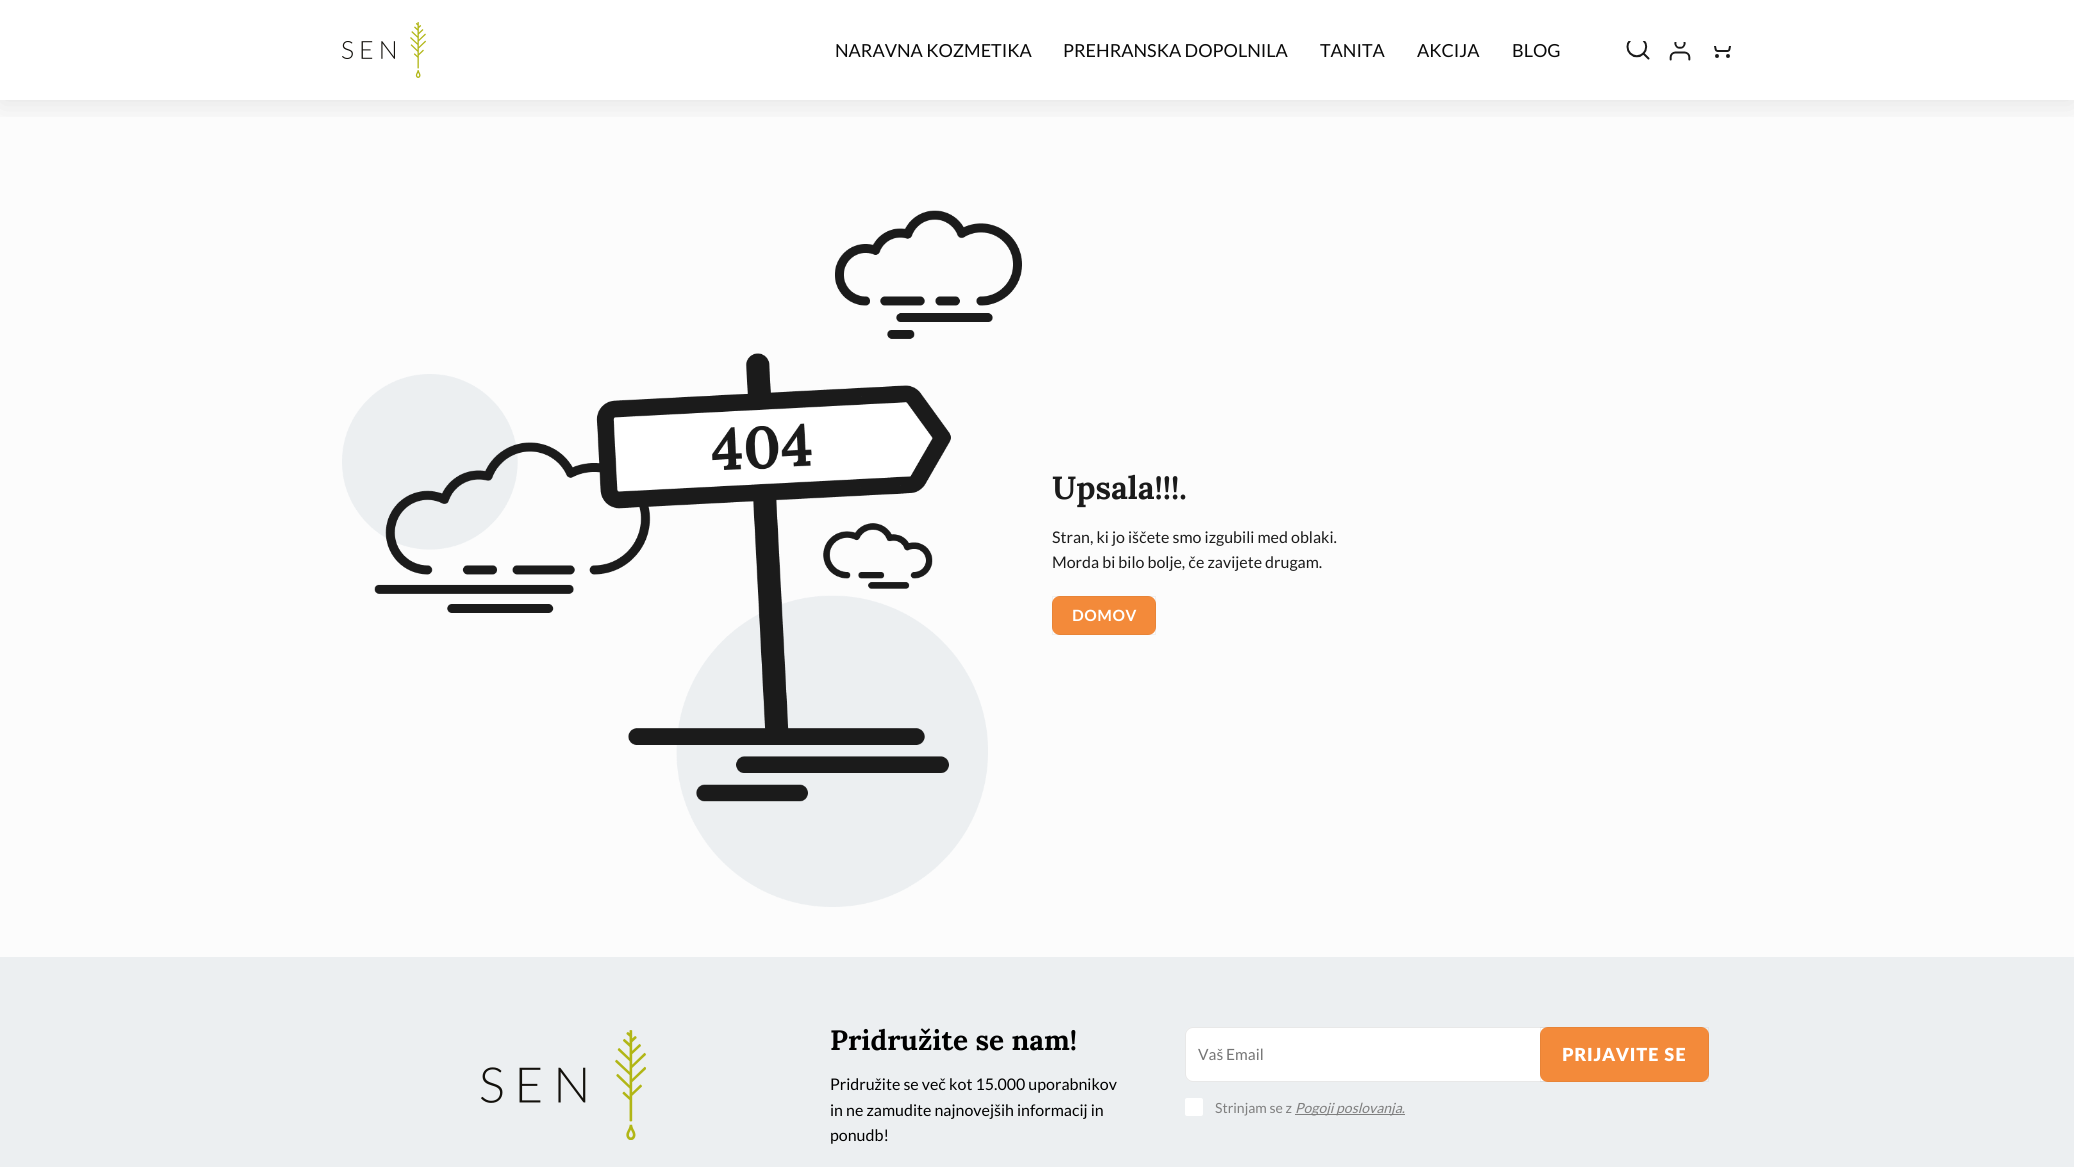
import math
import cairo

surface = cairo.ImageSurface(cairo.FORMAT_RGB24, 2074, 1167)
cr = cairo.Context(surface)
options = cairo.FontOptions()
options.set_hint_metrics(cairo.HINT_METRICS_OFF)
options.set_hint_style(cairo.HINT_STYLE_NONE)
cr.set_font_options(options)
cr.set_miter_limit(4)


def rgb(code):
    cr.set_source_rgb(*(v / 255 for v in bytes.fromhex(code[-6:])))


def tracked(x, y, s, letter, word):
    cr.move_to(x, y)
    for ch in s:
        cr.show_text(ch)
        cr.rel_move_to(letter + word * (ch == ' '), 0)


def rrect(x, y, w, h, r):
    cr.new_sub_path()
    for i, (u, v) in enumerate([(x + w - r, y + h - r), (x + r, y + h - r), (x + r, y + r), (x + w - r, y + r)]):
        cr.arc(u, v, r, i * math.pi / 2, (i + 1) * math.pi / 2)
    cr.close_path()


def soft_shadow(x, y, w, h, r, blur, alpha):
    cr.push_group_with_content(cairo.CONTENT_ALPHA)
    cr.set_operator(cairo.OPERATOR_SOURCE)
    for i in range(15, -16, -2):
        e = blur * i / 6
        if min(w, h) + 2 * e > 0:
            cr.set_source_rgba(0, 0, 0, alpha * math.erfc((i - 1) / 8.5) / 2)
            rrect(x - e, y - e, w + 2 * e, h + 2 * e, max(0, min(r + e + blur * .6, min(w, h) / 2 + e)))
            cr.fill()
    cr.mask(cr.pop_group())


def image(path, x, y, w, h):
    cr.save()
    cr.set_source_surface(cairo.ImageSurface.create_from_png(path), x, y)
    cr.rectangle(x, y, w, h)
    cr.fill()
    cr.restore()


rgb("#fcfcfc")
cr.paint()
rgb("#ffffff")
cr.rectangle(0, 0, 2074, 100)
cr.fill()
cr.save()
cr.rectangle(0, 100, 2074, 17)
cr.clip()
rgb("#000000")
soft_shadow(0, 4, 2074, 100, 0, 15, 0.1)
cr.restore()
image("img/1.png", 342, 22, 84, 56)
image("img/2.png", 1626, 41, 24, 19)
image("img/3.png", 1669, 42, 22, 19)
image("img/4.png", 1714, 46, 17, 12)
image("img/5.png", 342, 210, 680, 697)
rgb("#f38a3a")
rrect(1052, 596, 104, 39, 8)
cr.fill()
cr.rectangle(1052.5, 596.5, 103, 38)
cr.set_source_rgba(0, 0, 0, 0.05)
cr.set_line_width(1)
cr.stroke()
rgb("#eceff1")
cr.rectangle(0, 957, 2074, 210)
cr.fill()
image("img/6.png", 481, 1030, 165, 110)
rgb("#ffffff")
cr.new_path()
cr.move_to(1193, 1027)
cr.line_to(1546, 1027)
cr.line_to(1546, 1082)
cr.line_to(1193, 1082)
cr.curve_to(1188.5, 1082, 1185, 1078.5, 1185, 1074)
cr.line_to(1185, 1035)
cr.curve_to(1185, 1030.5, 1188.5, 1027, 1193, 1027)
cr.close_path()
cr.fill()
cr.new_path()
cr.move_to(1193, 1027.5)
cr.line_to(1545.5, 1027.5)
cr.line_to(1545.5, 1081.5)
cr.line_to(1193, 1081.5)
cr.curve_to(1189, 1081.5, 1185.5, 1078, 1185.5, 1074)
cr.line_to(1185.5, 1035)
cr.curve_to(1185.5, 1031, 1189, 1027.5, 1193, 1027.5)
cr.close_path()
cr.set_source_rgba(0, 0, 0, 0.09)
cr.stroke()
rgb("#f38a3a")
rrect(1540, 1027, 169, 55, 8)
cr.fill()
cr.rectangle(1540.5, 1027.5, 168, 54)
cr.set_source_rgba(0, 0, 0, 0.05)
cr.stroke()
rgb("#ffffff")
rrect(1185, 1098, 18, 18, 2)
cr.fill()
rgb("#7f7f7f")
cr.rectangle(1295, 1114, 110, 1)
cr.fill()
cr.select_font_face("Lato")
cr.set_font_size(18)
rgb("#0a0a0a")
for x, y, s in [
    (835, 57, "NARAVNA KOZMETIKA"),
    (1063, 57, "PREHRANSKA DOPOLNILA"),
    (1320, 57, "TANITA"),
    (1417, 57, "AKCIJA"),
    (1512, 57, "BLOG"),
]:
    cr.move_to(x, y)
    cr.show_text(s)
cr.select_font_face("Lora", cairo.FONT_SLANT_NORMAL, cairo.FONT_WEIGHT_BOLD)
cr.set_font_size(32)
rgb("#1b1b1b")
cr.move_to(1052, 499)
cr.show_text("Upsala!!!.")
cr.select_font_face("Lato")
cr.set_font_size(16)
cr.move_to(1052, 543)
cr.show_text("Stran, ki jo iščete smo izgubili med oblaki.")
cr.move_to(1052, 568)
cr.show_text("Morda bi bilo bolje, če zavijete drugam.")
cr.select_font_face("Lato", cairo.FONT_SLANT_NORMAL, cairo.FONT_WEIGHT_BOLD)
cr.set_font_size(15.5)
rgb("#ffffff")
tracked(1072, 621, "DOMOV", 0.5, 0)
cr.select_font_face("Lora", cairo.FONT_SLANT_NORMAL, cairo.FONT_WEIGHT_BOLD)
cr.set_font_size(28)
rgb("#000000")
cr.move_to(830, 1050)
cr.show_text("Pridružite se nam!")
cr.select_font_face("Lato")
cr.set_font_size(16)
for x, y, s in [
    (830, 1090, "Pridružite se več kot 15.000 uporabnikov"),
    (830, 1116, "in ne zamudite najnovejših informacij in"),
    (830, 1141, "ponudb!"),
]:
    cr.move_to(x, y)
    cr.show_text(s)
cr.set_font_size(15.5)
rgb("#757575")
cr.move_to(1198, 1060)
cr.show_text("Vaš Email")
cr.select_font_face("Lato Black")
cr.set_font_size(18)
rgb("#ffffff")
tracked(1562, 1061, "PRIJAVITE SE", 0.9, 0)
cr.select_font_face("Lato")
cr.set_font_size(14)
rgb("#7f7f7f")
cr.move_to(1215, 1113)
cr.show_text("Strinjam se z")
cr.select_font_face("Lato", cairo.FONT_SLANT_ITALIC)
cr.move_to(1295, 1113)
cr.show_text("Pogoji poslovanja.")
surface.write_to_png("page.png")
